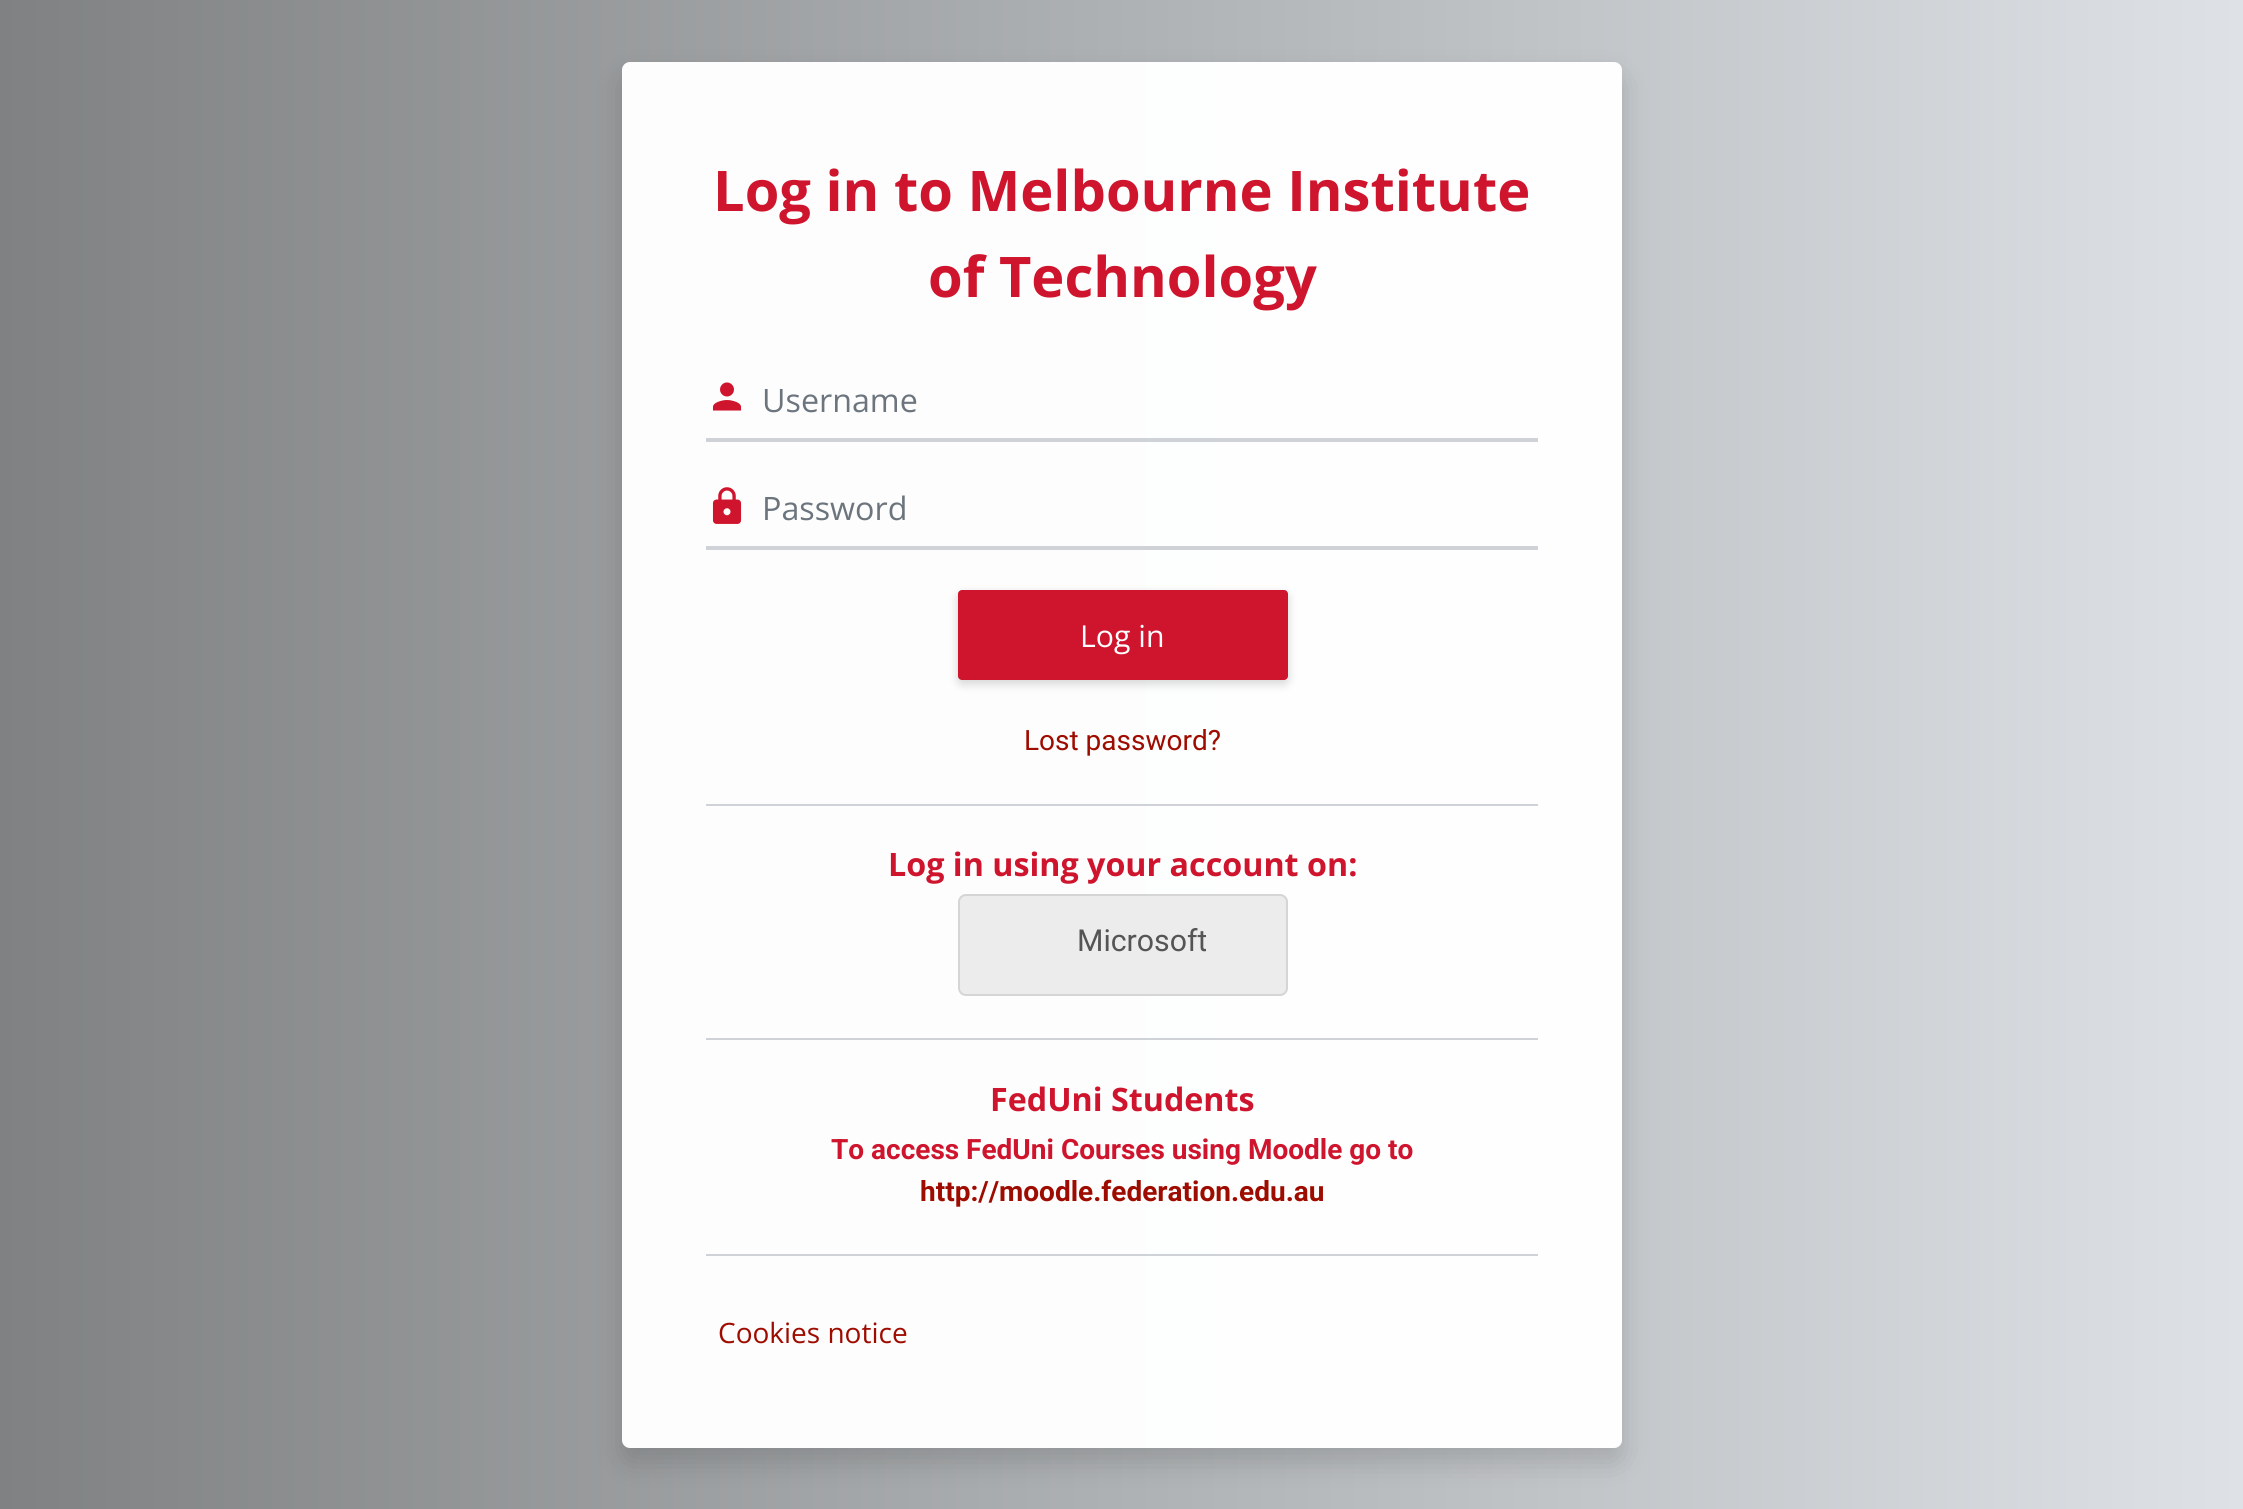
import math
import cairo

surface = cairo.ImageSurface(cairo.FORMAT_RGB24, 2243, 1509)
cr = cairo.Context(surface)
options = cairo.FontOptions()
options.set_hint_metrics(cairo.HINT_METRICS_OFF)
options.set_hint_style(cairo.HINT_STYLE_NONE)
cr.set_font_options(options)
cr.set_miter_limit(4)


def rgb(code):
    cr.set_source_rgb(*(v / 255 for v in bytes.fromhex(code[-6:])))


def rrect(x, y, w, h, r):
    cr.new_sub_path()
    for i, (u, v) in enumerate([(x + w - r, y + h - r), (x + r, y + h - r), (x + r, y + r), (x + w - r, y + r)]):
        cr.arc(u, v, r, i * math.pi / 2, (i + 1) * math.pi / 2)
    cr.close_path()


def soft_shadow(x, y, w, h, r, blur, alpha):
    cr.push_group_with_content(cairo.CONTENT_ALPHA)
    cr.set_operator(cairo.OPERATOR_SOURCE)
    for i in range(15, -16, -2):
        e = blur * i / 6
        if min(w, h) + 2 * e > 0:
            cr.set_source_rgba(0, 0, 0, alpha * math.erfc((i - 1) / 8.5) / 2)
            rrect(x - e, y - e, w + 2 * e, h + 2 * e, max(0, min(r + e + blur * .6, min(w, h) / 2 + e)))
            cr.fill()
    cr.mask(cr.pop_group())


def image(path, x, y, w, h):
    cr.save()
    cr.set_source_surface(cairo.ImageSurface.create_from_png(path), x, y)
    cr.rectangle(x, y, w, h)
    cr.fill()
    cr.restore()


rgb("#ffffff")
cr.paint()
gradient = cairo.LinearGradient(0, 755, 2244, 755)
gradient.add_color_stop_rgba(0, 0.498, 0.506, 0.51, 1)
gradient.add_color_stop_rgba(1, 0.871, 0.886, 0.902, 1)
cr.set_source(gradient)
cr.rectangle(0, 0, 2243, 1509)
cr.fill()
cr.save()
cr.set_fill_rule(cairo.FILL_RULE_EVEN_ODD)
cr.new_path()
cr.move_to(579, 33)
cr.line_to(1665, 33)
cr.line_to(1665, 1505)
cr.line_to(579, 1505)
cr.close_path()
cr.move_to(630, 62)
cr.line_to(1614, 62)
cr.curve_to(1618.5, 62, 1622, 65.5, 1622, 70)
cr.line_to(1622, 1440)
cr.curve_to(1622, 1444.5, 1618.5, 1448, 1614, 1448)
cr.line_to(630, 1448)
cr.curve_to(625.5, 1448, 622, 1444.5, 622, 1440)
cr.line_to(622, 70)
cr.curve_to(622, 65.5, 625.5, 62, 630, 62)
cr.close_path()
cr.clip()
rgb("#000000")
soft_shadow(622, 76, 1000, 1386, 8, 14, 0.15)
cr.restore()
cr.set_source_rgba(1, 1, 1, 0.98)
rrect(622, 62, 1000, 1386, 8)
cr.fill()
image("img/1.png", 712, 382, 30, 29)
rgb("#cfd2d6")
cr.rectangle(706, 438, 832, 4)
cr.fill()
image("img/2.png", 712, 487, 30, 37)
cr.rectangle(706, 546, 832, 4)
cr.fill()
rgb("#000000")
soft_shadow(958, 594, 330, 90, 4, 5, 0.16)
rgb("#cf152d")
rrect(958, 590, 330, 90, 4)
cr.fill()
rgb("#cfd2d6")
cr.rectangle(706, 804, 832, 2)
cr.fill()
rgb("#ececed")
rrect(958, 894, 330, 102, 8)
cr.fill()
rrect(959, 895, 328, 100, 7)
cr.set_source_rgba(0, 0, 0, 0.1)
cr.stroke()
rgb("#cfd2d6")
cr.rectangle(706, 1038, 832, 2)
cr.fill()
cr.rectangle(706, 1254, 832, 2)
cr.fill()
cr.select_font_face("Open Sans", cairo.FONT_SLANT_NORMAL, cairo.FONT_WEIGHT_BOLD)
cr.set_font_size(56)
rgb("#cf152d")
cr.move_to(713, 211)
cr.show_text("Log in to Melbourne Institute")
cr.move_to(928, 297)
cr.show_text("of Technology")
cr.select_font_face("Open Sans")
cr.set_font_size(32.25)
rgb("#6c757d")
cr.move_to(762, 412)
cr.show_text("Username")
cr.move_to(762, 520)
cr.show_text("Password")
cr.set_font_size(30.25)
rgb("#ffffff")
cr.move_to(1080, 647)
cr.show_text("Log in")
cr.select_font_face("Roboto")
cr.set_font_size(28)
rgb("#9e0c00")
cr.move_to(1024, 750)
cr.show_text("Lost password?")
cr.select_font_face("Open Sans", cairo.FONT_SLANT_NORMAL, cairo.FONT_WEIGHT_BOLD)
cr.set_font_size(32.25)
rgb("#cf152d")
cr.move_to(888, 876)
cr.show_text("Log in using your account on:")
cr.select_font_face("Roboto")
cr.set_font_size(30.25)
rgb("#555555")
cr.move_to(1077, 951)
cr.show_text("Microsoft")
cr.select_font_face("Open Sans", cairo.FONT_SLANT_NORMAL, cairo.FONT_WEIGHT_BOLD)
cr.set_font_size(32.25)
rgb("#cf152d")
cr.move_to(990, 1111)
cr.show_text("FedUni Students")
cr.select_font_face("Roboto", cairo.FONT_SLANT_NORMAL, cairo.FONT_WEIGHT_BOLD)
cr.set_font_size(28)
cr.move_to(831, 1159)
cr.show_text("To access FedUni Courses using Moodle go to")
rgb("#9e0c00")
cr.move_to(920, 1201)
cr.show_text("http://moodle.federation.edu.au")
cr.select_font_face("Open Sans")
cr.move_to(718, 1343)
cr.show_text("Cookies notice")
surface.write_to_png("page.png")
